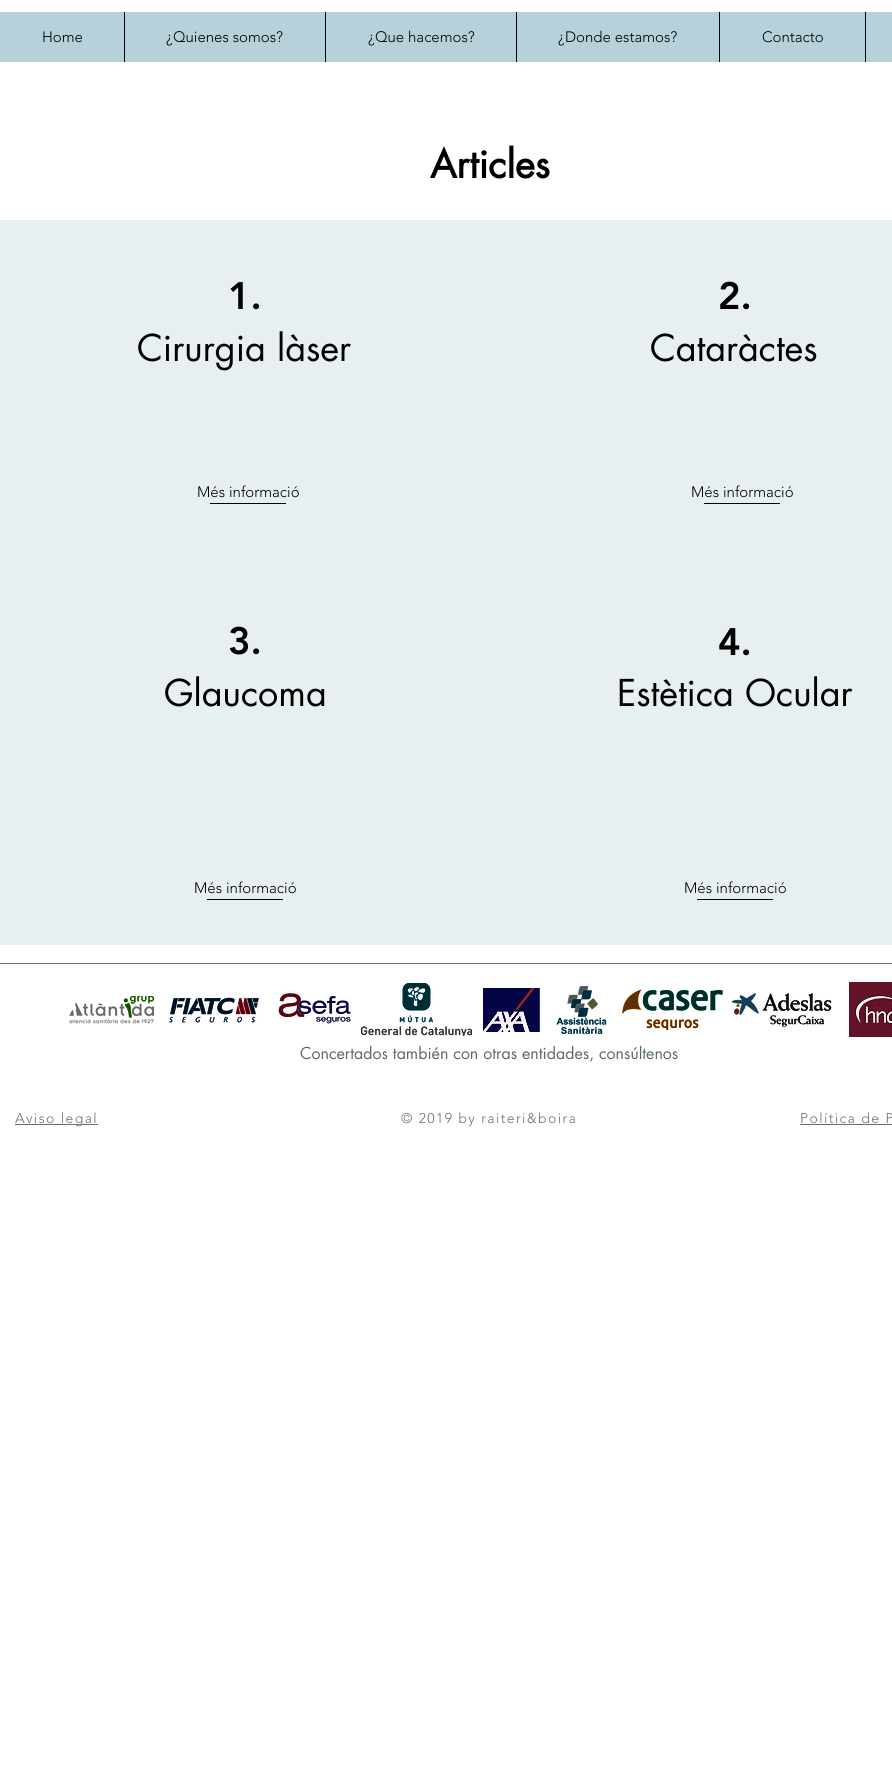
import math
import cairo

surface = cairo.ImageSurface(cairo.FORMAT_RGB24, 892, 1768)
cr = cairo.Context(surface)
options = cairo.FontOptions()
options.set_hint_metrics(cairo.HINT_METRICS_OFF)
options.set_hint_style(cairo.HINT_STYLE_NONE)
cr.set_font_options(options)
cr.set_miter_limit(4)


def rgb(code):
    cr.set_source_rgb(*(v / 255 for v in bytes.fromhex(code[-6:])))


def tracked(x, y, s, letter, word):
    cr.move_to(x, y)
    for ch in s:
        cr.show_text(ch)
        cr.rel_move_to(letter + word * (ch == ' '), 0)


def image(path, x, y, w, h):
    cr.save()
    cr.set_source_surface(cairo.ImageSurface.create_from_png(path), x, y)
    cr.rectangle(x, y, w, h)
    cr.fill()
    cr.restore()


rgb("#ffffff")
cr.paint()
for x, y, w, h, color in [
    (0, 12, 892, 50, "#b6d1d9"),
    (124, 12, 1, 50, "#000000"),
    (325, 12, 1, 50, "#000000"),
    (516, 12, 1, 50, "#000000"),
    (719, 12, 1, 50, "#000000"),
    (865, 12, 1, 50, "#000000"),
    (0, 220, 892, 348, "#e8eff1"),
    (210, 503, 76, 1, "#000000"),
    (704, 503, 76, 1, "#000000"),
    (0, 568, 892, 377, "#e8eff1"),
    (207, 899, 76, 1, "#000000"),
    (697, 899, 76, 1, "#000000"),
    (0, 963, 892, 1, "#6e6e6d"),
]:
    rgb(color)
    cr.rectangle(x, y, w, h)
    cr.fill()
image("img/1.png", 69, 996, 86, 28)
image("img/2.png", 168, 996, 93, 27)
image("img/3.png", 277, 991, 76, 33)
image("img/4.png", 361, 983, 111, 53)
image("img/5.png", 483, 988, 57, 44)
image("img/6.png", 555, 985, 52, 51)
image("img/7.png", 622, 989, 101, 41)
image("img/8.png", 731, 991, 101, 36)
image("img/9.png", 849, 982, 43, 55)
cr.rectangle(15, 1124, 83, 1)
cr.fill()
cr.rectangle(800, 1124, 92, 1)
cr.fill()
cr.select_font_face("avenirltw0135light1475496 Light")
cr.set_font_size(15)
rgb("#000000")
for x, y, s in [
    (42, 42, "Home"),
    (166, 42, "¿Quienes somos?"),
    (368, 42, "¿Que hacemos?"),
    (558, 42, "¿Donde estamos?"),
    (762, 42, "Contacto"),
]:
    cr.move_to(x, y)
    cr.show_text(s)
cr.select_font_face("futura", cairo.FONT_SLANT_NORMAL, cairo.FONT_WEIGHT_BOLD)
cr.set_font_size(38)
cr.move_to(430, 178)
cr.show_text("Articles")
cr.select_font_face("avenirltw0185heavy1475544 Black")
cr.move_to(228, 309)
cr.show_text("1.")
cr.select_font_face("futura")
cr.set_font_size(36)
cr.move_to(137, 361)
cr.show_text("Cirurgia làser")
cr.select_font_face("avenirltw0135light1475496 Light")
cr.set_font_size(15)
cr.move_to(197, 497)
cr.show_text("Més informació")
cr.select_font_face("avenirltw0185heavy1475544 Black")
cr.set_font_size(38)
cr.move_to(718, 309)
cr.show_text("2.")
cr.select_font_face("futura")
cr.set_font_size(36)
cr.move_to(650, 361)
cr.show_text("Cataràctes")
cr.select_font_face("avenirltw0135light1475496 Light")
cr.set_font_size(15)
cr.move_to(691, 497)
cr.show_text("Més informació")
cr.select_font_face("avenirltw0185heavy1475544 Black")
cr.set_font_size(38)
cr.move_to(228, 654)
cr.show_text("3.")
cr.select_font_face("futura")
cr.set_font_size(36)
cr.move_to(164, 706)
cr.show_text("Glaucoma")
cr.select_font_face("avenirltw0135light1475496 Light")
cr.set_font_size(15)
cr.move_to(194, 893)
cr.show_text("Més informació")
cr.select_font_face("avenirltw0185heavy1475544 Black")
cr.set_font_size(38)
cr.move_to(718, 655)
cr.show_text("4.")
cr.select_font_face("futura")
cr.set_font_size(36)
cr.move_to(617, 706)
cr.show_text("Estètica Ocular")
cr.select_font_face("avenirltw0135light1475496 Light")
cr.set_font_size(15)
cr.move_to(684, 893)
cr.show_text("Més informació")
cr.select_font_face("futura")
cr.set_font_size(16)
rgb("#5b696d")
cr.move_to(300, 1059)
cr.show_text("Concertados también con otras entidades, consúltenos")
cr.select_font_face("avenirltw0135light1475496 Light")
cr.set_font_size(14)
rgb("#6e6e6d")
for x, y, s in [
    (15, 1123, "Aviso legal"),
    (401, 1123, "© 2019 by raiteri&boira"),
    (800, 1123, "Política de P"),
]:
    tracked(x, y, s, 1.4, 0)
surface.write_to_png("page.png")
